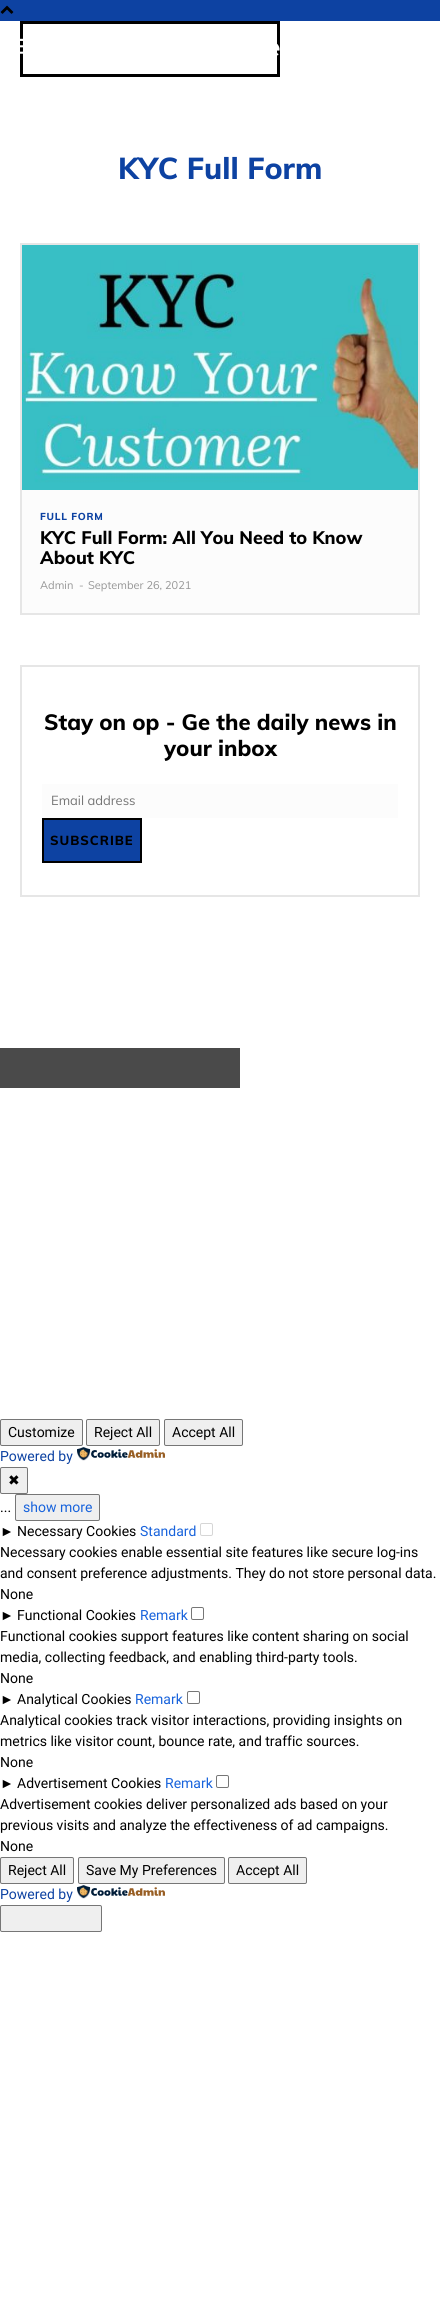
import math
import cairo

surface = cairo.ImageSurface(cairo.FORMAT_RGB24, 440, 2305)
cr = cairo.Context(surface)
options = cairo.FontOptions()
options.set_hint_metrics(cairo.HINT_METRICS_OFF)
options.set_hint_style(cairo.HINT_STYLE_NONE)
cr.set_font_options(options)
cr.set_miter_limit(4)


def rgb(code):
    cr.set_source_rgb(*(v / 255 for v in bytes.fromhex(code[-6:])))


def tracked(x, y, s, letter, word):
    cr.move_to(x, y)
    for ch in s:
        cr.show_text(ch)
        cr.rel_move_to(letter + word * (ch == ' '), 0)


def rrect(x, y, w, h, r):
    cr.new_sub_path()
    for i, (u, v) in enumerate([(x + w - r, y + h - r), (x + r, y + h - r), (x + r, y + r), (x + w - r, y + r)]):
        cr.arc(u, v, r, i * math.pi / 2, (i + 1) * math.pi / 2)
    cr.close_path()


def image(path, x, y, w, h):
    cr.save()
    cr.set_source_surface(cairo.ImageSurface.create_from_png(path), x, y)
    cr.rectangle(x, y, w, h)
    cr.fill()
    cr.restore()


rgb("#ffffff")
cr.paint()
rgb("#0d42a2")
cr.rectangle(0, 0, 440, 21)
cr.fill()
image("img/1.png", 0, 5, 14, 9)
cr.rectangle(21.5, 22.5, 257, 53)
rgb("#000000")
cr.set_line_width(3)
cr.stroke()
image("img/2.png", 20, 38, 3, 16)
image("img/3.png", 277, 43, 3, 13)
rgb("#fcfcfc")
cr.rectangle(22, 490, 396, 123)
cr.fill()
cr.rectangle(21, 244, 398, 370)
rgb("#e6e6e6")
cr.set_line_width(2)
cr.stroke()
image("img/4.png", 22, 245, 396, 245)
cr.rectangle(21, 666, 398, 230)
cr.stroke()
rgb("#fcfcfc")
cr.rectangle(42, 784, 356, 34)
cr.fill()
rgb("#0d42a2")
cr.rectangle(43, 819, 98, 43)
cr.fill_preserve()
rgb("#000000")
cr.stroke()
rgb("#4a4a4a")
cr.rectangle(0, 1048, 240, 40)
cr.fill()
rgb("#efefef")
rrect(0.5, 1419.5, 82, 26, 1.5)
cr.fill_preserve()
rgb("#767676")
cr.set_line_width(1)
cr.stroke()
rgb("#efefef")
rrect(86.5, 1419.5, 73, 26, 1.5)
cr.fill_preserve()
rgb("#767676")
cr.stroke()
rgb("#efefef")
rrect(164.5, 1419.5, 78, 26, 1.5)
cr.fill_preserve()
rgb("#767676")
cr.stroke()
image("img/5.png", 77, 1447, 88, 14)
rgb("#efefef")
rrect(0.5, 1467.5, 27, 26, 1.5)
cr.fill_preserve()
rgb("#767676")
cr.stroke()
rgb("#efefef")
rrect(15.5, 1494.5, 84, 26, 1.5)
cr.fill_preserve()
rgb("#767676")
cr.stroke()
rrect(200.5, 1523.5, 12, 12, 1.5)
rgb("#d6d6d6")
cr.stroke()
rrect(191.5, 1607.5, 12, 12, 1.5)
rgb("#767676")
cr.stroke()
rrect(187.5, 1691.5, 12, 12, 1.5)
cr.stroke()
rrect(216.5, 1775.5, 12, 12, 1.5)
cr.stroke()
rgb("#efefef")
rrect(0.5, 1857.5, 73, 26, 1.5)
cr.fill_preserve()
rgb("#767676")
cr.stroke()
rgb("#efefef")
rrect(78.5, 1857.5, 146, 26, 1.5)
cr.fill_preserve()
rgb("#767676")
cr.stroke()
rgb("#efefef")
rrect(228.5, 1857.5, 78, 26, 1.5)
cr.fill_preserve()
rgb("#767676")
cr.stroke()
image("img/5.png", 77, 1885, 88, 14)
rgb("#efefef")
rrect(0.5, 1905.5, 101, 26, 1.5)
cr.fill_preserve()
rgb("#767676")
cr.stroke()
cr.select_font_face("Muli ExtraBold")
cr.set_font_size(30)
rgb("#0d42a2")
cr.move_to(118, 179)
cr.show_text("KYC Full Form")
cr.set_font_size(10)
tracked(40, 520, "FULL FORM", 0.75, 0)
cr.set_font_size(18)
rgb("#000000")
cr.move_to(40, 544)
cr.show_text("KYC Full Form: All You Need to Know")
cr.move_to(40, 564)
cr.show_text("About KYC")
cr.select_font_face("Muli")
cr.set_font_size(11)
rgb("#969696")
for x, y, s in [
    (40, 589, "Admin"),
    (79, 589, "-"),
    (88, 589, "September 26, 2021"),
]:
    cr.move_to(x, y)
    cr.show_text(s)
cr.select_font_face("Muli ExtraBold")
cr.set_font_size(22)
rgb("#000000")
cr.move_to(44, 730)
cr.show_text("Stay on op - Ge the daily news in")
cr.move_to(164, 756)
cr.show_text("your inbox")
cr.select_font_face("Muli")
cr.set_font_size(13)
rgb("#757575")
cr.move_to(51, 805)
cr.show_text("Email address")
cr.select_font_face("Muli ExtraBold")
rgb("#000000")
tracked(50, 845, "SUBSCRIBE", 1, 0)
cr.select_font_face("Roboto")
cr.set_font_size(14)
for x, y, s in [
    (8, 1437, "Customize"),
    (94, 1437, "Reject All"),
    (172, 1437, "Accept All"),
]:
    cr.move_to(x, y)
    cr.show_text(s)
rgb("#0d42a2")
cr.move_to(0, 1461)
cr.show_text("Powered by")
cr.select_font_face("DejaVu Sans")
rgb("#000000")
cr.move_to(8, 1485)
cr.show_text("✖")
cr.select_font_face("Roboto")
cr.move_to(0, 1512)
cr.show_text("...")
rgb("#1863dc")
cr.move_to(23, 1512)
cr.show_text("show more")
cr.select_font_face("Liberation Sans")
rgb("#000000")
cr.move_to(0, 1536)
cr.show_text("►")
cr.select_font_face("Roboto")
cr.move_to(17, 1536)
cr.show_text("Necessary Cookies")
rgb("#1863dc")
cr.move_to(140, 1536)
cr.show_text("Standard")
rgb("#000000")
for x, y, s in [
    (0, 1557, "Necessary cookies enable essential site features like secure log-ins"),
    (0, 1578, "and consent preference adjustments. They do not store personal data."),
    (0, 1599, "None"),
]:
    cr.move_to(x, y)
    cr.show_text(s)
cr.select_font_face("Liberation Sans")
cr.move_to(0, 1620)
cr.show_text("►")
cr.select_font_face("Roboto")
cr.move_to(17, 1620)
cr.show_text("Functional Cookies")
rgb("#1863dc")
cr.move_to(140, 1620)
cr.show_text("Remark")
rgb("#000000")
for x, y, s in [
    (0, 1641, "Functional cookies support features like content sharing on social"),
    (0, 1662, "media, collecting feedback, and enabling third-party tools."),
    (0, 1683, "None"),
]:
    cr.move_to(x, y)
    cr.show_text(s)
cr.select_font_face("Liberation Sans")
cr.move_to(0, 1704)
cr.show_text("►")
cr.select_font_face("Roboto")
cr.move_to(17, 1704)
cr.show_text("Analytical Cookies")
rgb("#1863dc")
cr.move_to(135, 1704)
cr.show_text("Remark")
rgb("#000000")
for x, y, s in [
    (0, 1725, "Analytical cookies track visitor interactions, providing insights on"),
    (0, 1746, "metrics like visitor count, bounce rate, and traffic sources."),
    (0, 1767, "None"),
]:
    cr.move_to(x, y)
    cr.show_text(s)
cr.select_font_face("Liberation Sans")
cr.move_to(0, 1788)
cr.show_text("►")
cr.select_font_face("Roboto")
cr.move_to(17, 1788)
cr.show_text("Advertisement Cookies")
rgb("#1863dc")
cr.move_to(165, 1788)
cr.show_text("Remark")
rgb("#000000")
for x, y, s in [
    (0, 1809, "Advertisement cookies deliver personalized ads based on your"),
    (0, 1830, "previous visits and analyze the effectiveness of ad campaigns."),
    (0, 1851, "None"),
    (8, 1875, "Reject All"),
    (86, 1875, "Save My Preferences"),
    (236, 1875, "Accept All"),
]:
    cr.move_to(x, y)
    cr.show_text(s)
rgb("#0d42a2")
cr.move_to(0, 1899)
cr.show_text("Powered by")
surface.write_to_png("page.png")
